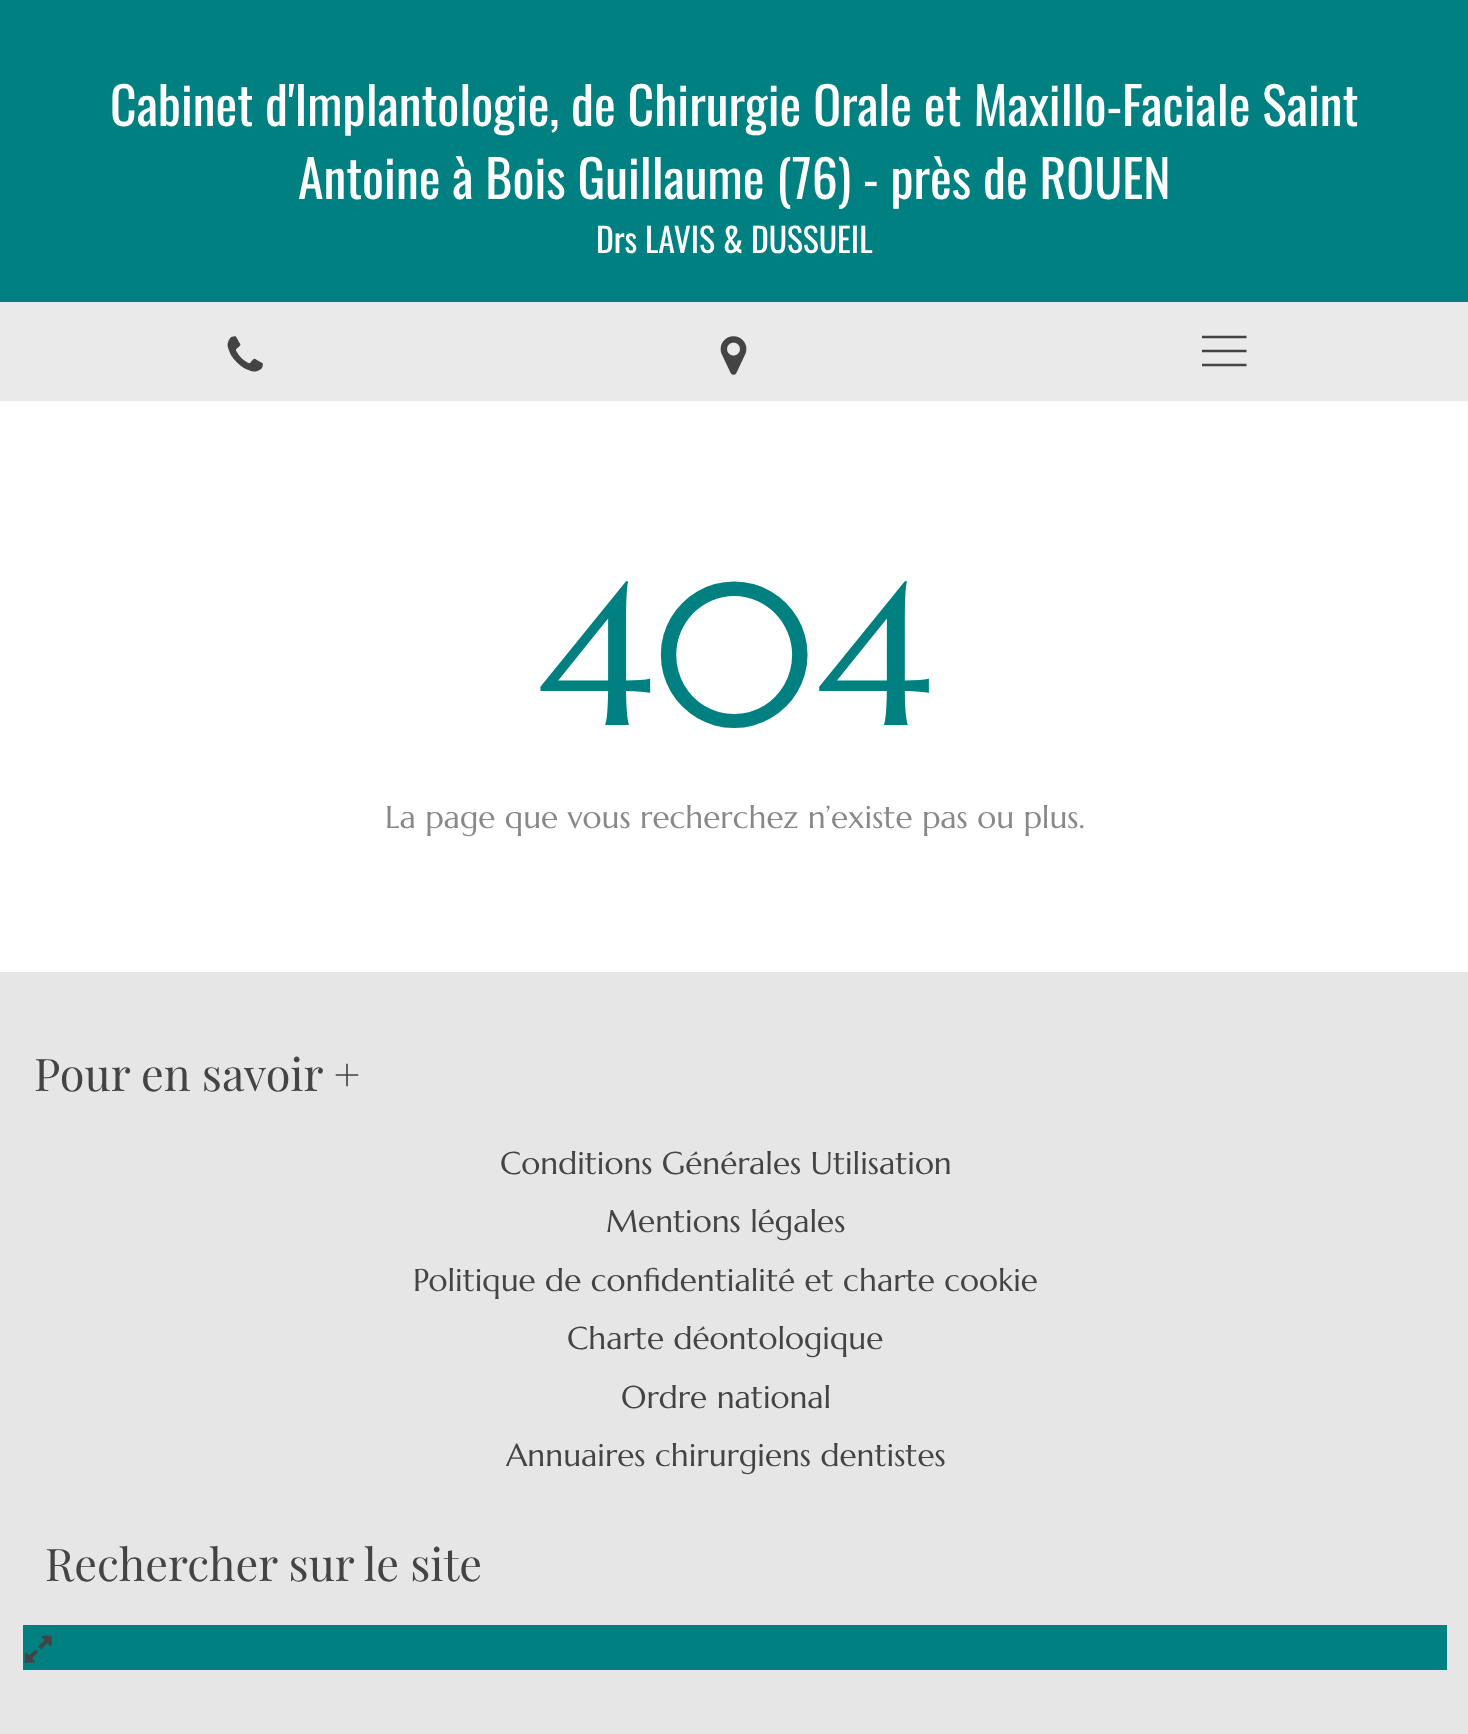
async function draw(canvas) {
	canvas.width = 1468;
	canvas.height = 1734;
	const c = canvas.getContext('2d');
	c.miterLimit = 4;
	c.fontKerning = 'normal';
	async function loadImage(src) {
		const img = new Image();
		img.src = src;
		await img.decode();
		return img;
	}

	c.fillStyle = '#fff';
	c.fillRect(0, 0, 1468, 1734);
	c.fillStyle = '#008080';
	c.fillRect(0, 0, 1468, 302);
	c.font = '51.75px Oswald';
	c.fillStyle = '#fff';
	c.fillText('Cabinet d\'Implantologie, de Chirurgie Orale et Maxillo-Faciale Saint', 110, 126);
	c.fillText('Antoine à Bois Guillaume (76) - près de ROUEN', 298, 199);
	c.font = '33.75px Oswald';
	c.fillText('Drs LAVIS & DUSSUEIL', 596, 253);
	c.fillStyle = '#eaeaea';
	c.fillRect(0, 302, 1468, 99);
	c.drawImage(await loadImage('img1.png'), 227, 336, 36, 36);
	c.drawImage(await loadImage('img2.png'), 720, 336, 27, 39);
	c.save();
	c.beginPath();
	c.rect(1202, 329, 45, 45);
	c.clip();
	c.beginPath();
	c.moveTo(1201.5, 351);
	c.lineTo(1246.5, 351);
	c.moveTo(1201.5, 337);
	c.lineTo(1246.5, 337);
	c.moveTo(1201.5, 365);
	c.lineTo(1246.5, 365);
	c.strokeStyle = '#444';
	c.lineWidth = 2.7;
	c.stroke();
	c.restore();
	c.font = '202px Marcellus';
	c.fillStyle = '#008080';
	c.fillText('404', 537, 725);
	c.font = '31.5px Marcellus';
	c.fillStyle = '#888';
	c.fillText('La page que vous recherchez n’existe pas ou plus.', 385, 828);
	c.fillStyle = '#e6e6e6';
	c.fillRect(0, 972, 1468, 762);
	c.font = '45px Playfair Display';
	c.fillStyle = '#444';
	c.fillText('Pour en savoir +', 34, 1091);
	c.font = '31.5px Marcellus';
	for (const [text, x, y] of [
		['Conditions Générales Utilisation', 500, 1174],
		['Mentions légales', 606, 1232],
		['Politique de confidentialité et charte cookie', 413, 1291],
		['Charte déontologique', 567, 1349],
		['Ordre national', 621, 1408],
		['Annuaires chirurgiens dentistes', 506, 1466],
	]) {
		c.fillText(text, x, y);
	}
	c.font = '45px Playfair Display';
	c.fillText('Rechercher sur le site', 45, 1581);
	c.fillStyle = '#008080';
	c.fillRect(23, 1625, 1424, 45);
	c.drawImage(await loadImage('img3.png'), 24, 1635, 28, 28);
}

draw(document.querySelector('canvas'));
